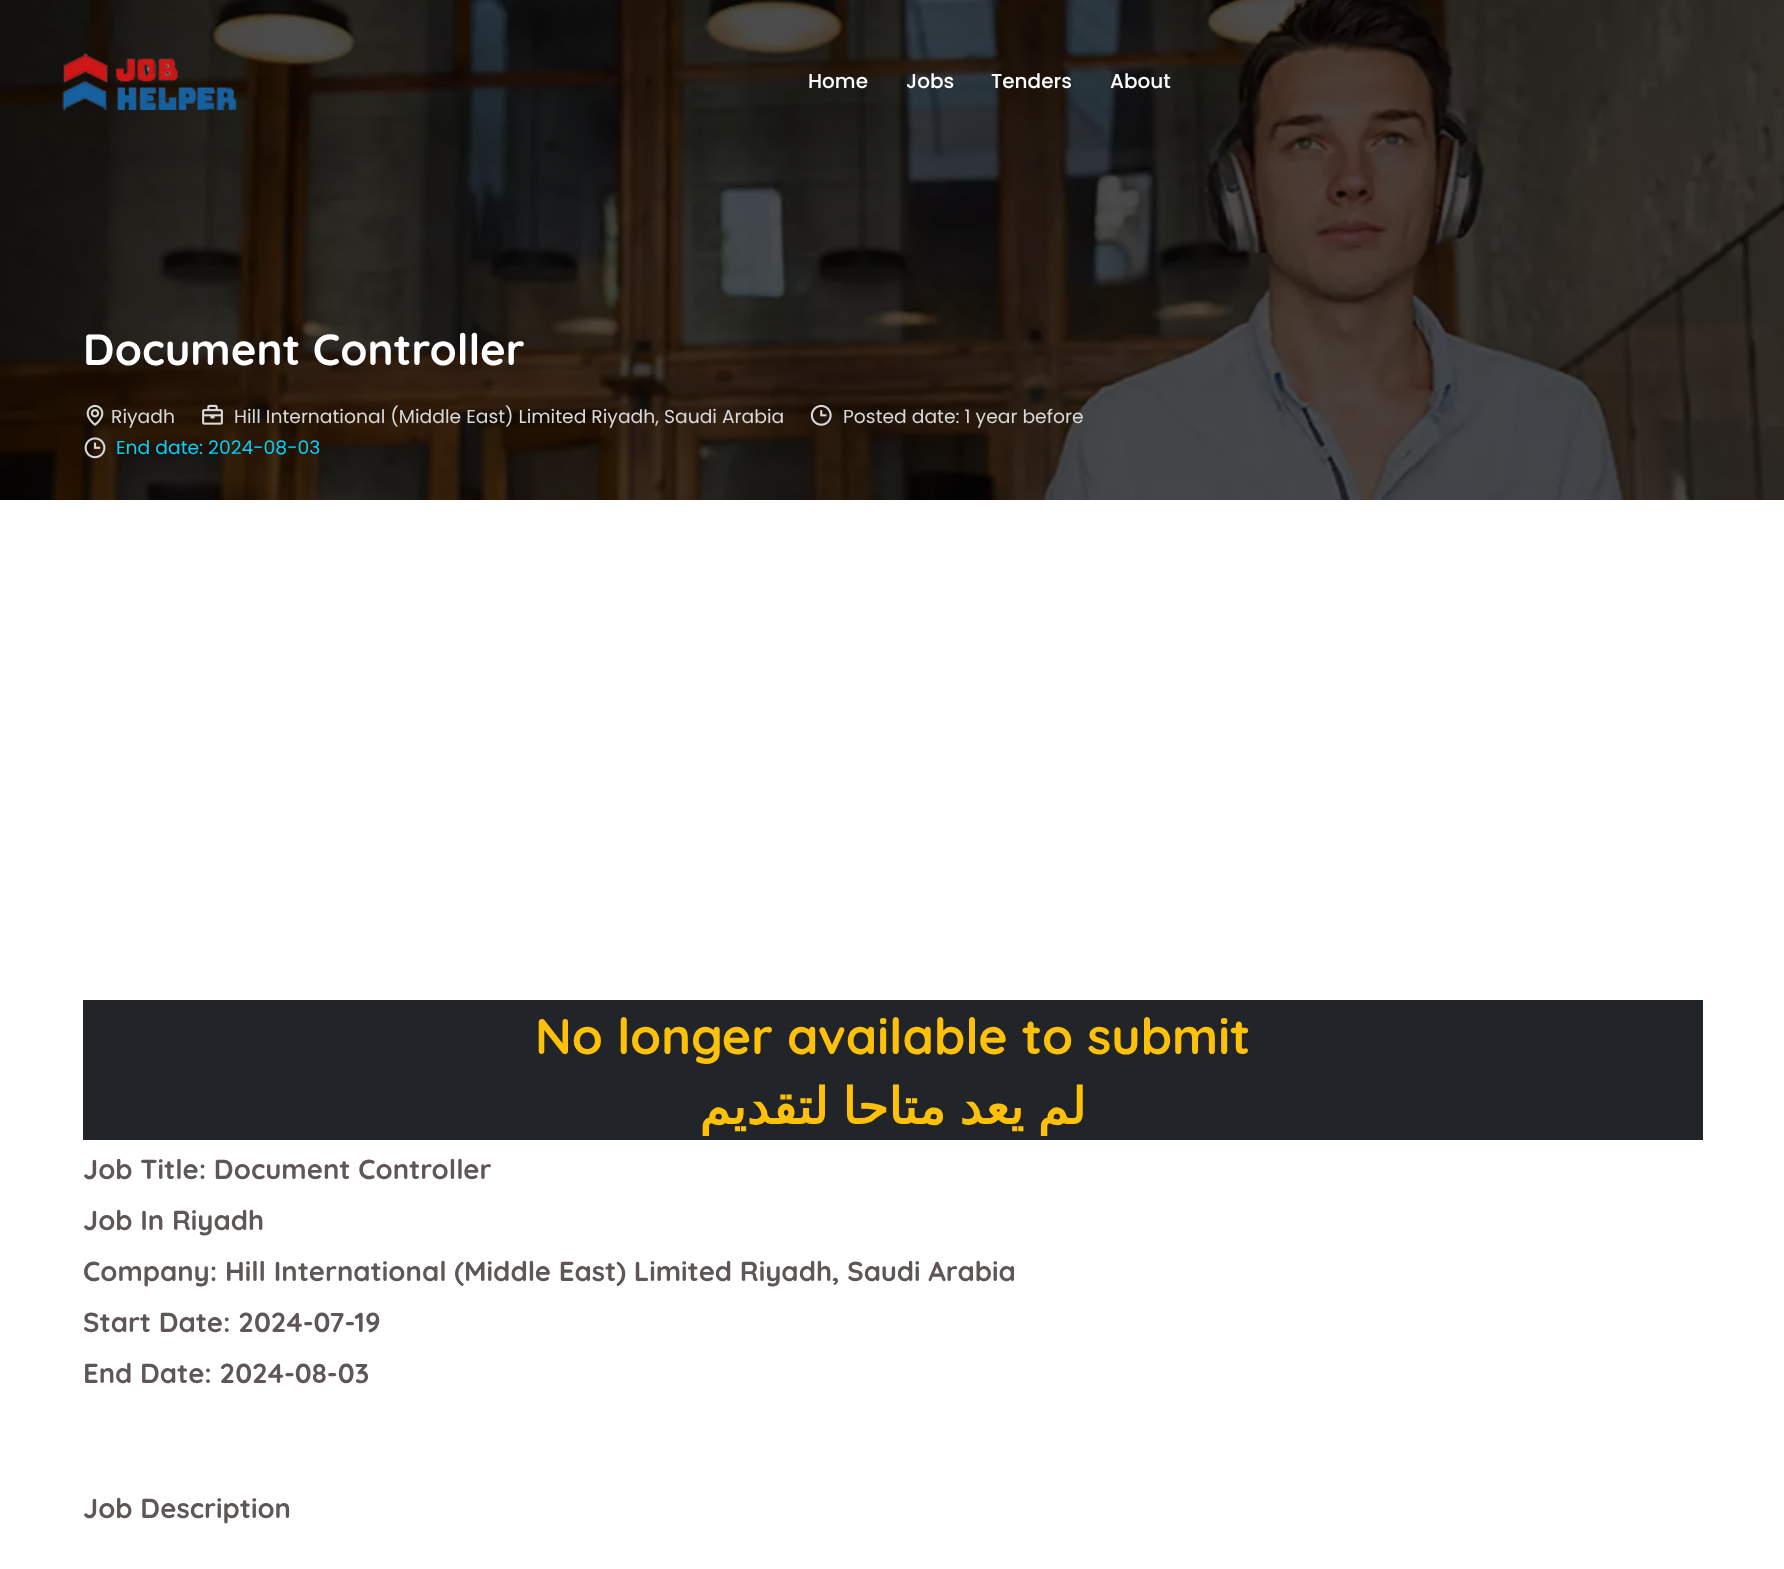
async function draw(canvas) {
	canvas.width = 1784;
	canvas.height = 1569;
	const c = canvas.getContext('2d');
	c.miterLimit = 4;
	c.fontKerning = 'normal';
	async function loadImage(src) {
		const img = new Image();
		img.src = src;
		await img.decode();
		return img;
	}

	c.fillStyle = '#fff';
	c.fillRect(0, 0, 1784, 1569);
	c.drawImage(await loadImage('img2.png'), 0, 0, 1784, 500);
	c.drawImage(await loadImage('img1.png'), 62, 53, 175, 57);
	c.font = '500 20px Poppins';
	for (const [text, x, y] of [
		['Home', 808, 88],
		['Jobs', 906, 88],
		['Tenders', 991, 88],
		['About', 1110, 88],
	]) {
		c.fillText(text, x, y);
	}
	c.font = 'bold 43.75px Quicksand';
	c.fillText('Document Controller', 83, 365);
	c.drawImage(await loadImage('img3.png'), 86, 404, 18, 22);
	c.font = '18.75px Poppins';
	c.fillStyle = '#d9d9d9';
	c.fillText('Riyadh', 111, 423);
	c.drawImage(await loadImage('img4.png'), 202, 404, 21, 21);
	c.fillText('Hill International (Middle East) Limited Riyadh, Saudi Arabia', 234, 423);
	c.drawImage(await loadImage('img5.png'), 810, 404, 22, 22);
	c.fillText('Posted date: 1 year before', 843, 423);
	c.drawImage(await loadImage('img6.png'), 84, 437, 22, 22);
	c.fillStyle = '#00d2ff';
	c.fillText('End date: 2024-08-03', 116, 454);
	c.fillStyle = '#212529';
	c.fillRect(83, 1000, 1620, 140);
	c.font = 'bold 50px Quicksand';
	c.fillStyle = '#ffc107';
	c.fillText('No longer available to submit', 535, 1054);
	c.wordSpacing = '-2px';
	c.direction = 'rtl';
	c.font = 'bold 50px DejaVu Sans';
	c.fillText('لم يعد متاحا لتقديم', 1086, 1124);
	c.wordSpacing = '0px';
	c.direction = 'ltr';
	c.font = 'bold 27.5px Quicksand';
	c.fillStyle = '#5f5656';
	for (const [text, x, y] of [
		['Job Title: Document Controller', 83, 1179],
		['Job In Riyadh', 83, 1230],
		['Company: Hill International (Middle East) Limited Riyadh, Saudi Arabia', 83, 1281],
		['Start Date: 2024-07-19', 83, 1332],
		['End Date: 2024-08-03', 83, 1383],
		['Job Description', 83, 1518],
	]) {
		c.fillText(text, x, y);
	}
}

draw(document.querySelector('canvas'));
